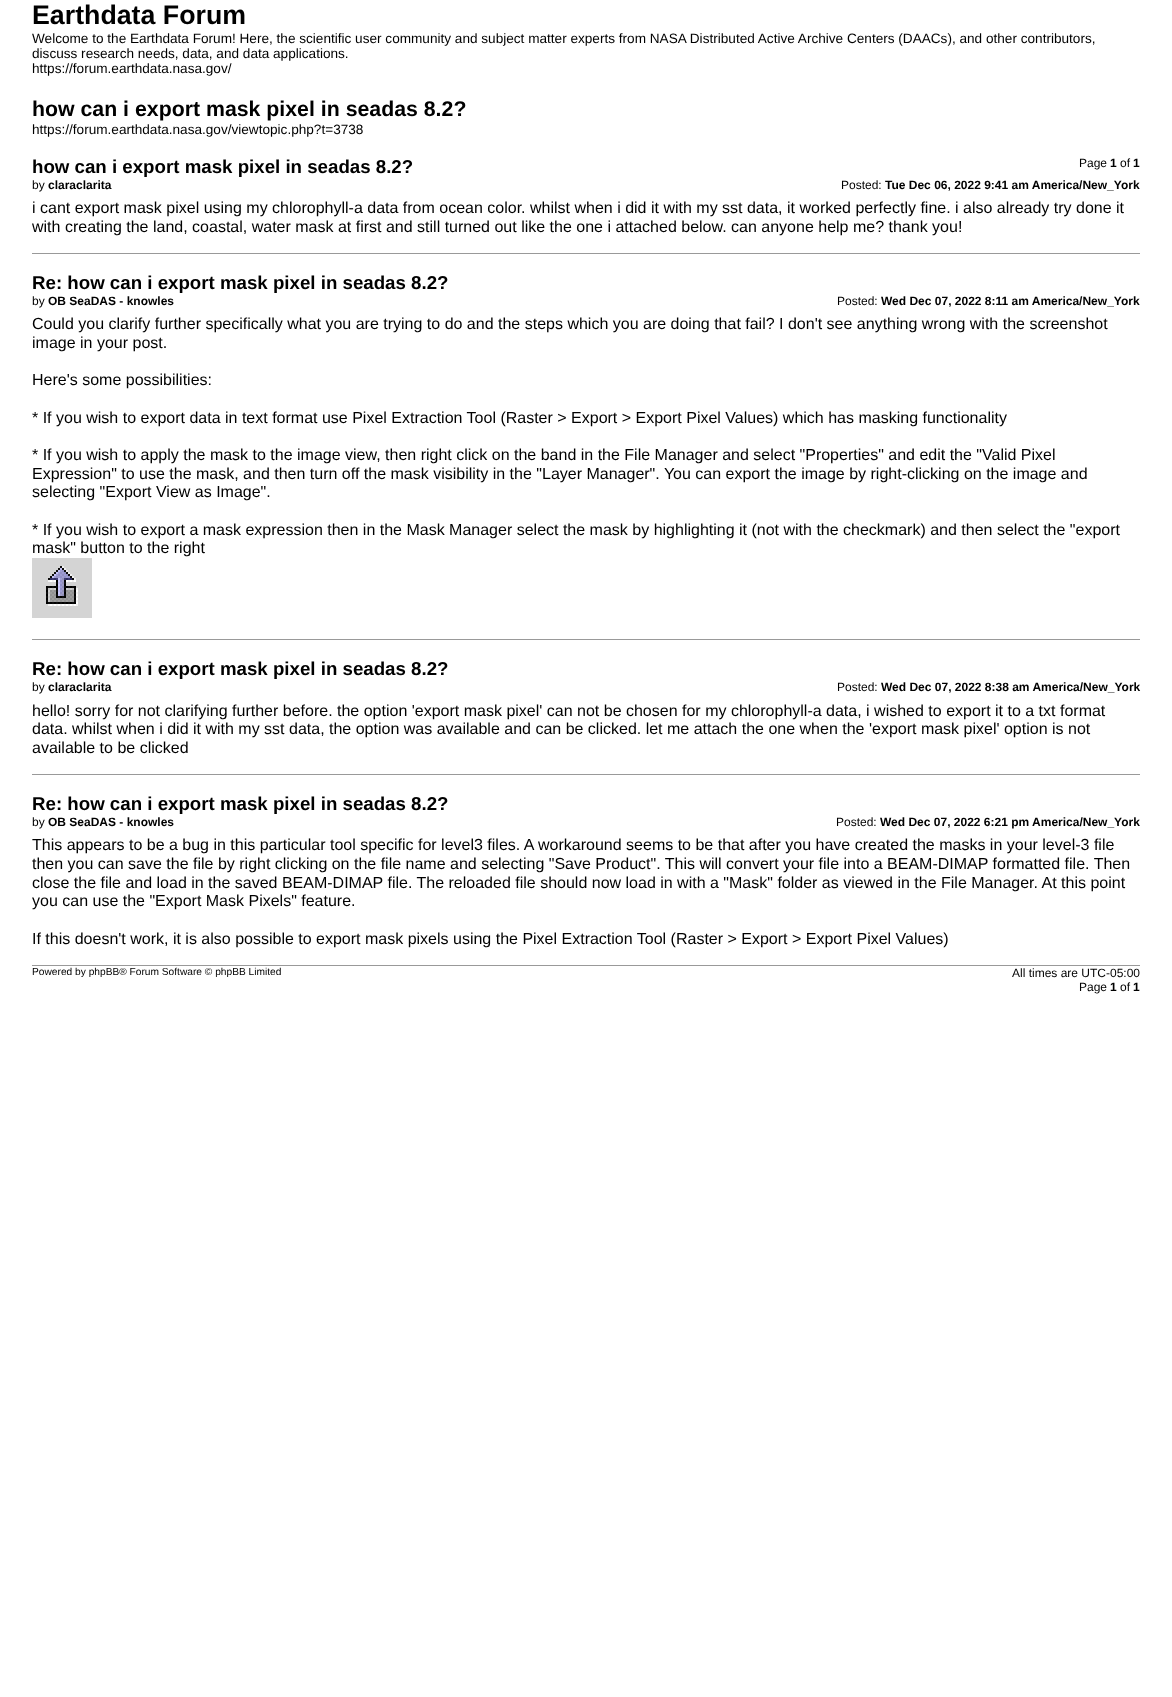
async function draw(canvas) {
	canvas.width = 1172;
	canvas.height = 1697;
	const c = canvas.getContext('2d');
	c.miterLimit = 4;
	c.fontKerning = 'normal';
	async function loadImage(src) {
		const img = new Image();
		img.src = src;
		await img.decode();
		return img;
	}

	c.fillStyle = '#fff';
	c.fillRect(0, 0, 1172, 1697);
	c.font = 'bold 26.75px Liberation Sans';
	c.fillStyle = '#000';
	c.fillText('Earthdata Forum', 32, 24);
	c.font = '13.6px Liberation Sans';
	for (const [text, x, y] of [
		['Welcome to the Earthdata Forum! Here, the scientific user community and subject matter experts from NASA Distributed Active Archive Centers (DAACs), and other contributors,', 32, 43],
		['discuss research needs, data, and data applications.', 32, 58],
		['https://forum.earthdata.nasa.gov/', 32, 73],
	]) {
		c.fillText(text, x, y);
	}
	c.font = 'bold 21.3px Liberation Sans';
	c.fillText('how can i export mask pixel in seadas 8.2?', 32, 116);
	c.font = '13.6px Liberation Sans';
	c.fillText('https://forum.earthdata.nasa.gov/viewtopic.php?t=3738', 32, 134);
	c.font = '12px Liberation Sans';
	c.fillText('Page', 1079, 167);
	c.font = 'bold 12px Liberation Sans';
	c.fillText('1', 1110, 167);
	c.font = '12px Liberation Sans';
	c.fillText('of', 1120, 167);
	c.font = 'bold 12px Liberation Sans';
	c.fillText('1', 1133, 167);
	c.font = 'bold 18.7px Liberation Sans';
	c.fillText('how can i export mask pixel in seadas 8.2?', 32, 173);
	c.font = '12px Liberation Sans';
	c.fillText('by', 32, 189);
	c.font = 'bold 12px Liberation Sans';
	c.fillText('claraclarita', 48, 189);
	c.font = '12px Liberation Sans';
	c.fillText('Posted:', 841, 189);
	c.font = 'bold 12px Liberation Sans';
	c.fillText('Tue Dec 06, 2022 9:41 am America/New_York', 885, 189);
	c.font = '16px Liberation Sans';
	c.fillText('i cant export mask pixel using my chlorophyll-a data from ocean color. whilst when i did it with my sst data, it worked perfectly fine. i also already try done it', 32, 213);
	c.fillText('with creating the land, coastal, water mask at first and still turned out like the one i attached below. can anyone help me? thank you!', 32, 232);
	c.fillStyle = '#999';
	c.fillRect(32, 253, 1108, 1);
	c.font = 'bold 18.7px Liberation Sans';
	c.fillStyle = '#000';
	c.fillText('Re: how can i export mask pixel in seadas 8.2?', 32, 289);
	c.font = '12px Liberation Sans';
	c.fillText('by', 32, 305);
	c.font = 'bold 12px Liberation Sans';
	c.fillText('OB SeaDAS - knowles', 48, 305);
	c.font = '12px Liberation Sans';
	c.fillText('Posted:', 837, 305);
	c.font = 'bold 12px Liberation Sans';
	c.fillText('Wed Dec 07, 2022 8:11 am America/New_York', 881, 305);
	c.font = '16px Liberation Sans';
	for (const [text, x, y] of [
		['Could you clarify further specifically what you are trying to do and the steps which you are doing that fail? I don\'t see anything wrong with the screenshot', 32, 329],
		['image in your post.', 32, 348],
		['Here\'s some possibilities:', 32, 385],
		['* If you wish to export data in text format use Pixel Extraction Tool (Raster > Export > Export Pixel Values) which has masking functionality', 32, 423],
		['* If you wish to apply the mask to the image view, then right click on the band in the File Manager and select "Properties" and edit the "Valid Pixel', 32, 460],
		['Expression" to use the mask, and then turn off the mask visibility in the "Layer Manager". You can export the image by right-clicking on the image and', 32, 479],
		['selecting "Export View as Image".', 32, 497],
		['* If you wish to export a mask expression then in the Mask Manager select the mask by highlighting it (not with the checkmark) and then select the "export', 32, 535],
		['mask" button to the right', 32, 553],
	]) {
		c.fillText(text, x, y);
	}
	c.drawImage(await loadImage('img1.png'), 32, 558, 60, 60);
	c.fillStyle = '#999';
	c.fillRect(32, 639, 1108, 1);
	c.font = 'bold 18.7px Liberation Sans';
	c.fillStyle = '#000';
	c.fillText('Re: how can i export mask pixel in seadas 8.2?', 32, 675);
	c.font = '12px Liberation Sans';
	c.fillText('by', 32, 691);
	c.font = 'bold 12px Liberation Sans';
	c.fillText('claraclarita', 48, 691);
	c.font = '12px Liberation Sans';
	c.fillText('Posted:', 837, 691);
	c.font = 'bold 12px Liberation Sans';
	c.fillText('Wed Dec 07, 2022 8:38 am America/New_York', 881, 691);
	c.font = '16px Liberation Sans';
	for (const [text, x, y] of [
		['hello! sorry for not clarifying further before. the option \'export mask pixel\' can not be chosen for my chlorophyll-a data, i wished to export it to a txt format', 32, 716],
		['data. whilst when i did it with my sst data, the option was available and can be clicked. let me attach the one when the \'export mask pixel\' option is not', 32, 734],
		['available to be clicked', 32, 753],
	]) {
		c.fillText(text, x, y);
	}
	c.fillStyle = '#999';
	c.fillRect(32, 774, 1108, 1);
	c.font = 'bold 18.7px Liberation Sans';
	c.fillStyle = '#000';
	c.fillText('Re: how can i export mask pixel in seadas 8.2?', 32, 810);
	c.font = '12px Liberation Sans';
	c.fillText('by', 32, 826);
	c.font = 'bold 12px Liberation Sans';
	c.fillText('OB SeaDAS - knowles', 48, 826);
	c.font = '12px Liberation Sans';
	c.fillText('Posted:', 836, 826);
	c.font = 'bold 12px Liberation Sans';
	c.fillText('Wed Dec 07, 2022 6:21 pm America/New_York', 880, 826);
	c.font = '16px Liberation Sans';
	for (const [text, x, y] of [
		['This appears to be a bug in this particular tool specific for level3 files. A workaround seems to be that after you have created the masks in your level-3 file', 32, 850],
		['then you can save the file by right clicking on the file name and selecting "Save Product". This will convert your file into a BEAM-DIMAP formatted file. Then', 32, 869],
		['close the file and load in the saved BEAM-DIMAP file. The reloaded file should now load in with a "Mask" folder as viewed in the File Manager. At this point', 32, 888],
		['you can use the "Export Mask Pixels" feature.', 32, 906],
		['If this doesn\'t work, it is also possible to export mask pixels using the Pixel Extraction Tool (Raster > Export > Export Pixel Values)', 32, 944],
	]) {
		c.fillText(text, x, y);
	}
	c.fillStyle = '#999';
	c.fillRect(32, 965, 1108, 1);
	c.font = '10.2px Liberation Sans';
	c.fillStyle = '#000';
	c.fillText('Powered by phpBB® Forum Software © phpBB Limited', 32, 975);
	c.font = '12px Liberation Sans';
	c.fillText('All times are UTC-05:00', 1012, 977);
	c.fillText('Page', 1079, 991);
	c.font = 'bold 12px Liberation Sans';
	c.fillText('1', 1110, 991);
	c.font = '12px Liberation Sans';
	c.fillText('of', 1120, 991);
	c.font = 'bold 12px Liberation Sans';
	c.fillText('1', 1133, 991);
}

draw(document.querySelector('canvas'));
